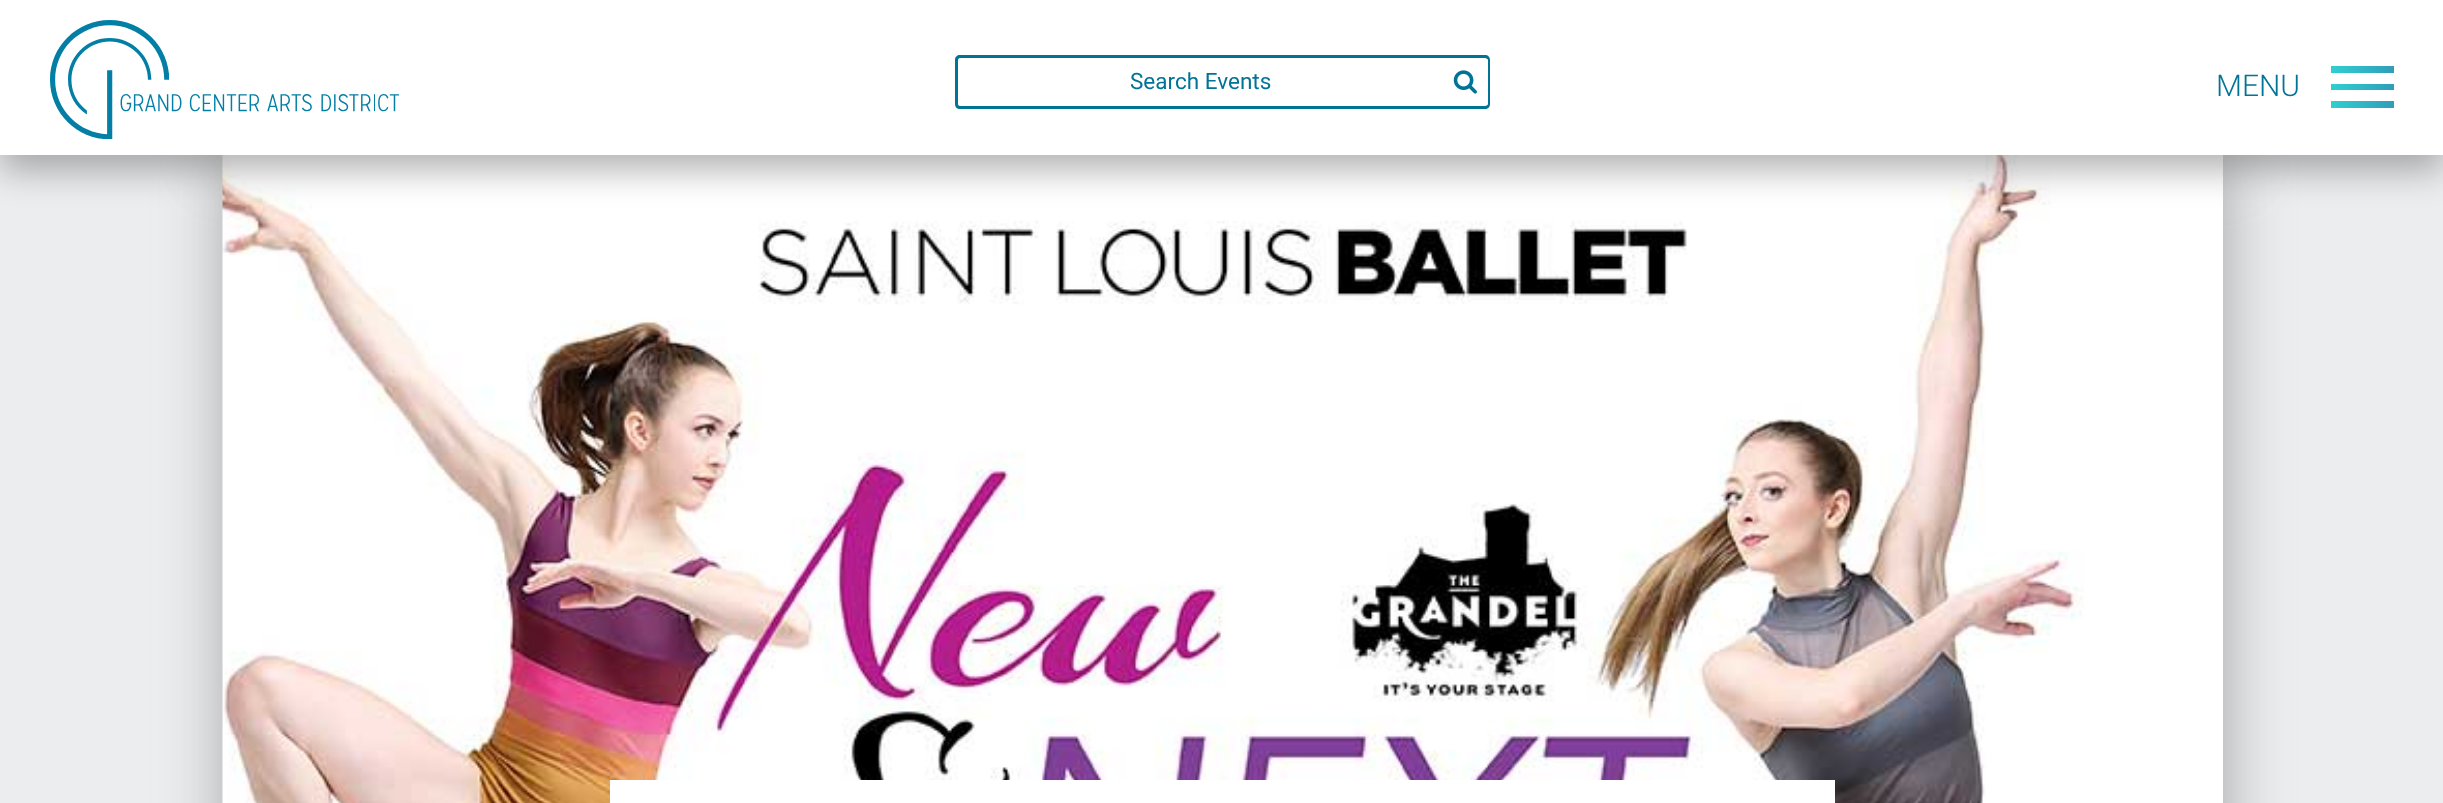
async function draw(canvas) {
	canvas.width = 2443;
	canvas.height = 803;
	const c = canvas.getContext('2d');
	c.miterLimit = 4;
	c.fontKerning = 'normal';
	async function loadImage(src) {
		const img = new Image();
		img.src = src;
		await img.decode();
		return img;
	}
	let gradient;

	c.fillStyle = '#ecedef';
	c.fillRect(0, 0, 2443, 803);
	c.fillStyle = '#a4a4a4';
	c.filter = 'blur(31px)';
	c.beginPath();
	c.rect(225, 158, 2000, 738);
	c.fill();
	c.filter = 'none';
	c.fillStyle = '#fff';
	c.fillRect(2084, 155, 139, 648);
	c.drawImage(await loadImage('img1.png'), 222, 155, 1862, 648);
	c.fillRect(610, 780, 1225, 23);
	c.fillStyle = '#0000004d';
	c.filter = 'blur(17.5px)';
	c.beginPath();
	c.rect(0, 15, 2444, 155);
	c.fill();
	c.filter = 'none';
	c.fillStyle = '#fff';
	c.fillRect(0, 0, 2443, 155);
	c.drawImage(await loadImage('img2.png'), 50, 20, 349, 120);
	c.fillStyle = '#007396';
	c.beginPath();
	c.moveTo(960, 55);
	c.lineTo(1444, 55);
	c.lineTo(1444, 109);
	c.lineTo(960, 109);
	c.bezierCurveTo(957, 109, 955, 107, 955, 104);
	c.lineTo(955, 60);
	c.bezierCurveTo(955, 57, 957, 55, 960, 55);
	c.closePath();
	c.moveTo(960, 58);
	c.lineTo(1444, 58);
	c.lineTo(1444, 106);
	c.lineTo(960, 106);
	c.bezierCurveTo(959, 106, 958, 105, 958, 104);
	c.lineTo(958, 60);
	c.bezierCurveTo(958, 59, 959, 58, 960, 58);
	c.closePath();
	c.fill('evenodd');
	c.font = '22.5px Roboto';
	c.fillText('Search Events', 1130, 89);
	c.beginPath();
	c.moveTo(1444, 55);
	c.lineTo(1485, 55);
	c.bezierCurveTo(1488, 55, 1490, 57, 1490, 60);
	c.lineTo(1490, 104);
	c.bezierCurveTo(1490, 107, 1488, 109, 1485, 109);
	c.lineTo(1444, 109);
	c.closePath();
	c.moveTo(1444, 58);
	c.lineTo(1485, 58);
	c.bezierCurveTo(1486, 58, 1488, 59, 1488, 60);
	c.lineTo(1488, 104);
	c.bezierCurveTo(1488, 105, 1486, 106, 1485, 106);
	c.lineTo(1444, 106);
	c.closePath();
	c.fill('evenodd');
	c.drawImage(await loadImage('img3.png'), 1453, 70, 24, 24);
	gradient = c.createLinearGradient(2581, 79, 2331, 79);
	gradient.addColorStop(0, '#330876');
	gradient.addColorStop(1, '#30cfd0');
	c.fillStyle = gradient;
	c.fillRect(2331, 66, 63, 7);
	c.font = '300 30px Roboto';
	c.fillStyle = '#007396';
	c.fillText('MENU', 2216, 96);
	gradient = c.createLinearGradient(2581, 96, 2331, 96);
	gradient.addColorStop(0, '#330876');
	gradient.addColorStop(1, '#30cfd0');
	c.fillStyle = gradient;
	c.fillRect(2331, 84, 63, 6);
	gradient = c.createLinearGradient(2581, 114, 2331, 114);
	gradient.addColorStop(0, '#330876');
	gradient.addColorStop(1, '#30cfd0');
	c.fillStyle = gradient;
	c.fillRect(2331, 101, 63, 7);
}

draw(document.querySelector('canvas'));
